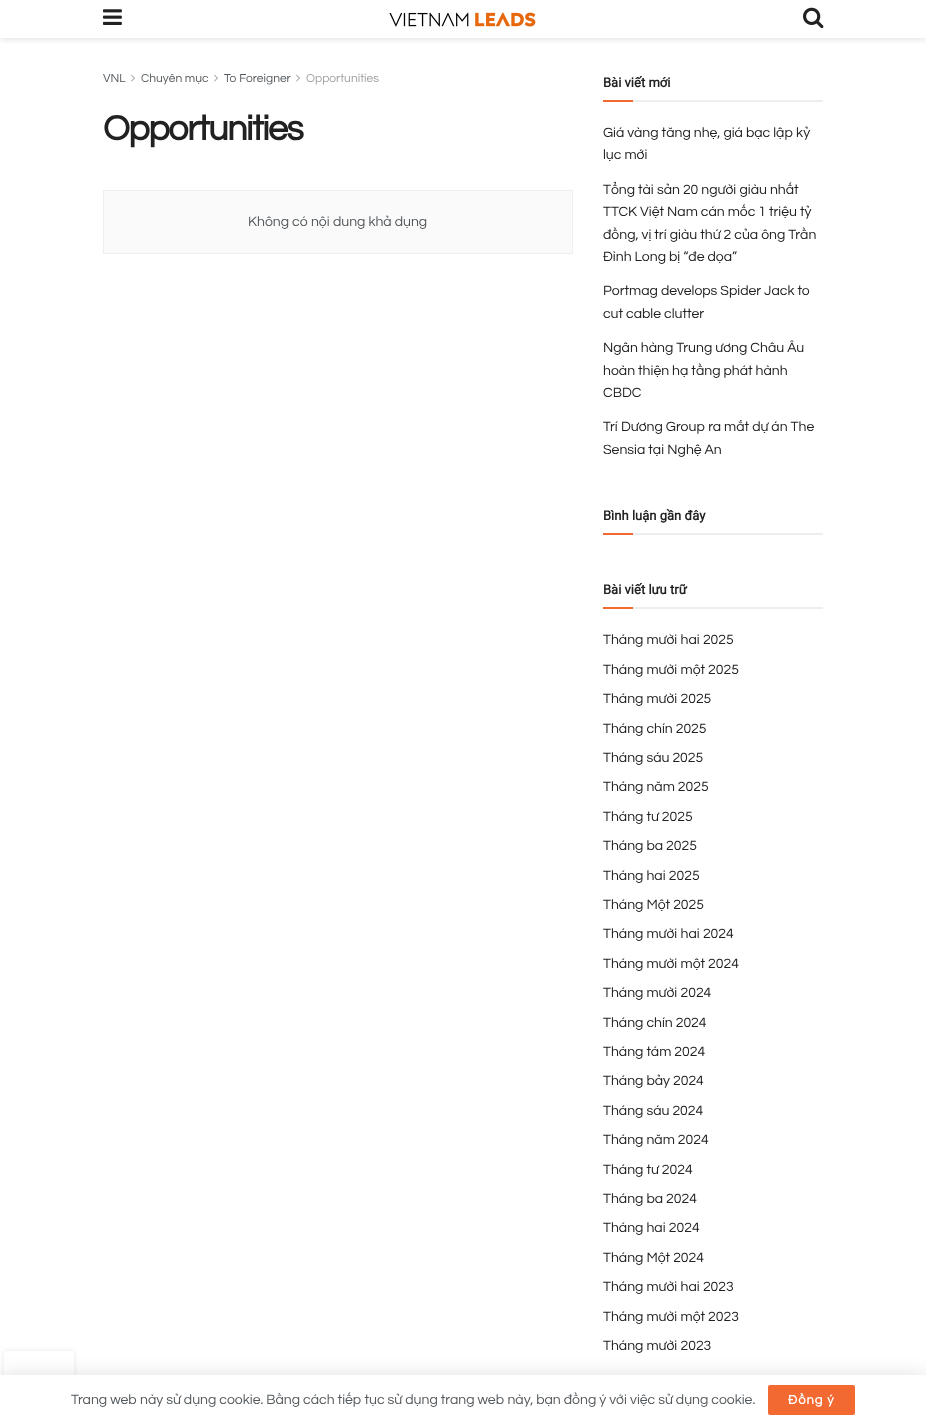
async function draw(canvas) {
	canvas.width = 926;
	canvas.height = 1425;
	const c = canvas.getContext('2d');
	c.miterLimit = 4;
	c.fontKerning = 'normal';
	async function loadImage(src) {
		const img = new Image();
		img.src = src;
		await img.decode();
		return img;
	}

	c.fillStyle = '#fff';
	c.fillRect(0, 0, 926, 1425);
	c.save();
	c.beginPath();
	c.rect(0, 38, 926, 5);
	c.clip();
	c.fillStyle = '#0000001a';
	c.filter = 'blur(3px)';
	c.beginPath();
	c.rect(0, 2, 926, 38);
	c.fill();
	c.filter = 'none';
	c.restore();
	c.drawImage(await loadImage('img1.png'), 103, 9, 19, 16);
	c.drawImage(await loadImage('img2.png'), 389, 12, 147, 15);
	c.drawImage(await loadImage('img3.png'), 803, 7, 21, 22);
	c.font = '12px Questrial';
	c.fillStyle = '#53585c';
	c.fillText('VNL', 103, 82);
	c.drawImage(await loadImage('img4.png'), 131, 74, 4, 8);
	c.fillText('Chuyên mục', 141, 82);
	c.drawImage(await loadImage('img4.png'), 214, 74, 4, 8);
	c.fillText('To Foreigner', 224, 82);
	c.drawImage(await loadImage('img4.png'), 296, 74, 4, 8);
	c.fillStyle = '#a0a0a0';
	c.fillText('Opportunities', 306, 82);
	c.letterSpacing = '-1.5px';
	c.font = 'bold 36px Questrial';
	c.fillStyle = '#212121';
	c.fillText('Opportunities', 103, 140);
	c.fillStyle = '#fafafa';
	c.beginPath();
	c.rect(103.5, 190.5, 469, 63);
	c.fill();
	c.strokeStyle = '#eee';
	c.stroke();
	c.letterSpacing = '0px';
	c.font = '14px Questrial';
	c.fillStyle = '#53585c';
	c.fillText('Không có nội dung khả dụng', 248, 226);
	c.fillStyle = '#eee';
	c.fillRect(633, 100, 190, 2);
	c.font = 'bold 13px Roboto';
	c.fillStyle = '#212121';
	c.fillText('Bài viết mới', 603, 87);
	c.fillStyle = '#f26932';
	c.fillRect(603, 100, 30, 2);
	c.font = '14px Questrial';
	c.fillStyle = '#212121';
	for (const [text, x, y] of [
		['Giá vàng tăng nhẹ, giá bạc lập kỷ', 603, 137],
		['lục mới', 603, 159],
		['Tổng tài sản 20 người giàu nhất', 603, 194],
		['TTCK Việt Nam cán mốc 1 triệu tỷ', 603, 216],
		['đồng, vị trí giàu thứ 2 của ông Trần', 603, 239],
		['Đình Long bị “đe dọa”', 603, 261],
		['Portmag develops Spider Jack to', 603, 295],
		['cut cable clutter', 603, 318],
		['Ngân hàng Trung ương Châu Âu', 603, 352],
		['hoàn thiện hạ tầng phát hành', 603, 375],
		['CBDC', 603, 397],
		['Trí Dương Group ra mắt dự án The', 603, 431],
		['Sensia tại Nghệ An', 603, 454],
	]) {
		c.fillText(text, x, y);
	}
	c.fillStyle = '#eee';
	c.fillRect(633, 533, 190, 2);
	c.font = 'bold 13px Roboto';
	c.fillStyle = '#212121';
	c.fillText('Bình luận gần đây', 603, 520);
	c.fillStyle = '#f26932';
	c.fillRect(603, 533, 30, 2);
	c.fillStyle = '#eee';
	c.fillRect(633, 607, 190, 2);
	c.fillStyle = '#212121';
	c.fillText('Bài viết lưu trữ', 603, 594);
	c.fillStyle = '#f26932';
	c.fillRect(603, 607, 30, 2);
	c.font = '14px Questrial';
	c.fillStyle = '#212121';
	for (const [text, x, y] of [
		['Tháng mười hai 2025', 603, 644],
		['Tháng mười một 2025', 603, 674],
		['Tháng mười 2025', 603, 703],
		['Tháng chín 2025', 603, 733],
		['Tháng sáu 2025', 603, 762],
		['Tháng năm 2025', 603, 791],
		['Tháng tư 2025', 603, 821],
		['Tháng ba 2025', 603, 850],
		['Tháng hai 2025', 603, 880],
		['Tháng Một 2025', 603, 909],
		['Tháng mười hai 2024', 603, 938],
		['Tháng mười một 2024', 603, 968],
		['Tháng mười 2024', 603, 997],
		['Tháng chín 2024', 603, 1027],
		['Tháng tám 2024', 603, 1056],
		['Tháng bảy 2024', 603, 1085],
		['Tháng sáu 2024', 603, 1115],
		['Tháng năm 2024', 603, 1144],
		['Tháng tư 2024', 603, 1174],
		['Tháng ba 2024', 603, 1203],
		['Tháng hai 2024', 603, 1232],
		['Tháng Một 2024', 603, 1262],
		['Tháng mười hai 2023', 603, 1291],
		['Tháng mười một 2023', 603, 1321],
		['Tháng mười 2023', 603, 1350],
	]) {
		c.fillText(text, x, y);
	}
	c.save();
	c.beginPath();
	c.moveTo(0, 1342);
	c.lineTo(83, 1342);
	c.lineTo(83, 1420);
	c.lineTo(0, 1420);
	c.closePath();
	c.moveTo(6, 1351);
	c.lineTo(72, 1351);
	c.bezierCurveTo(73, 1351, 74, 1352, 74, 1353);
	c.lineTo(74, 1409);
	c.bezierCurveTo(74, 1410, 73, 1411, 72, 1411);
	c.lineTo(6, 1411);
	c.bezierCurveTo(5, 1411, 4, 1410, 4, 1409);
	c.lineTo(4, 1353);
	c.bezierCurveTo(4, 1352, 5, 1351, 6, 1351);
	c.closePath();
	c.clip('evenodd');
	c.fillStyle = '#e6e6e6';
	c.filter = 'blur(2.5px)';
	c.beginPath();
	c.roundRect(4, 1351, 70, 60, 2);
	c.fill();
	c.filter = 'none';
	c.restore();
	c.fillStyle = '#00000026';
	c.filter = 'blur(10px)';
	c.beginPath();
	c.rect(0, 1377, 926, 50);
	c.fill();
	c.filter = 'none';
	c.fillStyle = '#00000033';
	c.filter = 'blur(0.5px)';
	c.beginPath();
	c.rect(0, 1375, 926, 50);
	c.fill();
	c.filter = 'none';
	c.fillStyle = '#fff';
	c.fillRect(0, 1375, 926, 50);
	c.fillStyle = '#53585c';
	c.fillText('Trang web này sử dụng cookie. Bằng cách tiếp tục sử dụng trang web này, bạn đồng ý với việc sử dụng cookie.', 71, 1404);
	c.fillStyle = '#f26932';
	c.beginPath();
	c.roundRect(768, 1385, 87, 30, 2);
	c.fill();
	c.letterSpacing = '1px';
	c.font = 'bold 13px Questrial';
	c.fillStyle = '#fff';
	c.fillText('Đồng ý', 788, 1404);
}

draw(document.querySelector('canvas'));
